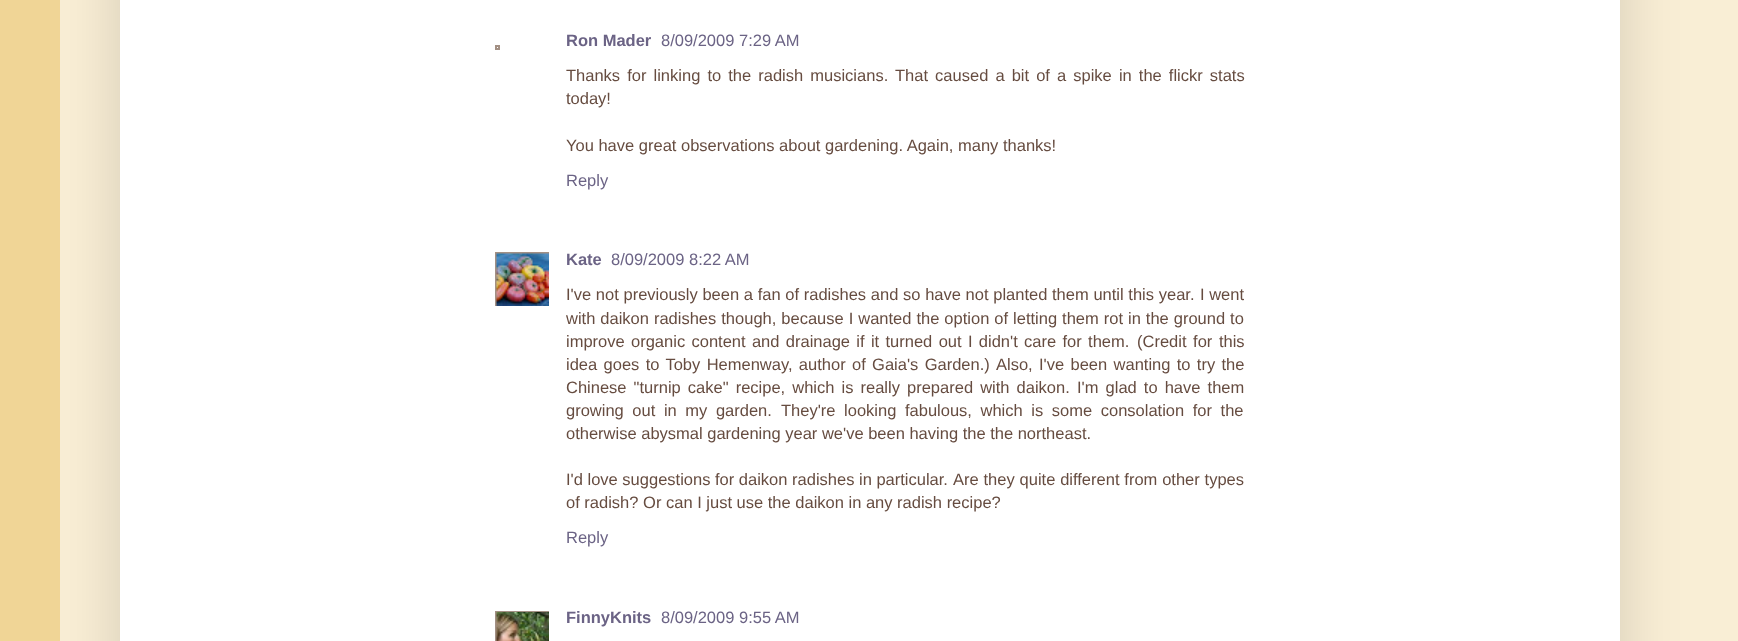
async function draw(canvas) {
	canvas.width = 1738;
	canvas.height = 641;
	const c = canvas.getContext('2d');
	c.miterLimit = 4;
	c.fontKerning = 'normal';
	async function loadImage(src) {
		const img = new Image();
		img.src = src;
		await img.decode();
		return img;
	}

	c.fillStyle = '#f0d596';
	c.fillRect(0, 0, 1738, 641);
	c.fillStyle = '#f9eed5';
	c.fillRect(60, 0, 1678, 641);
	c.fillStyle = '#00000026';
	c.filter = 'blur(30px)';
	c.beginPath();
	c.rect(120, -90, 1500, 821);
	c.fill();
	c.filter = 'none';
	c.fillStyle = '#fff';
	c.fillRect(120, 0, 1500, 641);
	c.strokeStyle = '#a39084';
	c.lineWidth = 2;
	c.strokeRect(496, 46, 3, 3);
	c.font = 'bold 16.5px Liberation Sans';
	c.fillStyle = '#6b6385';
	c.fillText('Ron Mader', 566, 46);
	c.font = '16.5px Liberation Sans';
	c.fillText('8/09/2009 7:29 AM', 661, 46);
	c.wordSpacing = '2.5px';
	c.fillStyle = '#664c40';
	c.fillText('Thanks for linking to the radish musicians. That caused a bit of a spike in the flickr stats', 566, 81);
	c.wordSpacing = '0px';
	c.fillText('today!', 566, 104);
	c.fillText('You have great observations about gardening. Again, many thanks!', 566, 151);
	c.fillStyle = '#6b6385';
	c.fillText('Reply', 566, 186);
	c.save();
	c.beginPath();
	c.rect(495, 252, 54, 54);
	c.clip();
	c.strokeRect(496, 253, 54, 54);
	c.restore();
	c.drawImage(await loadImage('img1.png'), 496, 253, 53, 53);
	c.font = 'bold 16.5px Liberation Sans';
	c.fillText('Kate', 566, 265);
	c.font = '16.5px Liberation Sans';
	c.fillText('8/09/2009 8:22 AM', 611, 265);
	c.wordSpacing = '0.1px';
	c.fillStyle = '#664c40';
	c.fillText('I\'ve not previously been a fan of radishes and so have not planted them until this year.', 566, 300);
	c.wordSpacing = '0px';
	c.fillText('I went', 1200, 300);
	c.wordSpacing = '0.4px';
	c.fillText('with daikon radishes though, because I wanted the option of letting them rot in the ground to', 566, 324);
	c.wordSpacing = '1.75px';
	c.fillText('improve organic content and drainage if it turned out I didn\'t care for them.', 566, 347);
	c.wordSpacing = '2px';
	c.fillText('(Credit for this', 1137, 347);
	c.wordSpacing = '1.75px';
	c.fillText('idea goes to Toby Hemenway, author of Gaia\'s Garden.)', 566, 370);
	c.fillText('Also, I\'ve been wanting to try the', 996, 370);
	c.wordSpacing = '2.5px';
	c.fillText('Chinese "turnip cake" recipe, which is really prepared with daikon.', 566, 393);
	c.fillText('I\'m glad to have them', 1077, 393);
	c.wordSpacing = '4px';
	c.fillText('growing out in my garden.', 566, 416);
	c.fillText('They\'re looking fabulous, which is some consolation for the', 781, 416);
	c.wordSpacing = '0px';
	c.fillText('otherwise abysmal gardening year we\'ve been having the the northeast.', 566, 439);
	c.fillText('I\'d love suggestions for daikon radishes in particular.', 566, 485);
	c.wordSpacing = '0.25px';
	c.fillText('Are they quite different from other types', 953, 485);
	c.wordSpacing = '0px';
	c.fillText('of radish? Or can I just use the daikon in any radish recipe?', 566, 508);
	c.fillStyle = '#6b6385';
	c.fillText('Reply', 566, 543);
	c.save();
	c.beginPath();
	c.rect(495, 611, 54, 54);
	c.clip();
	c.strokeRect(496, 612, 54, 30);
	c.restore();
	c.drawImage(await loadImage('img2.png'), 496, 612, 53, 29);
	c.font = 'bold 16.5px Liberation Sans';
	c.fillText('FinnyKnits', 566, 623);
	c.font = '16.5px Liberation Sans';
	c.fillText('8/09/2009 9:55 AM', 661, 623);
}

draw(document.querySelector('canvas'));
